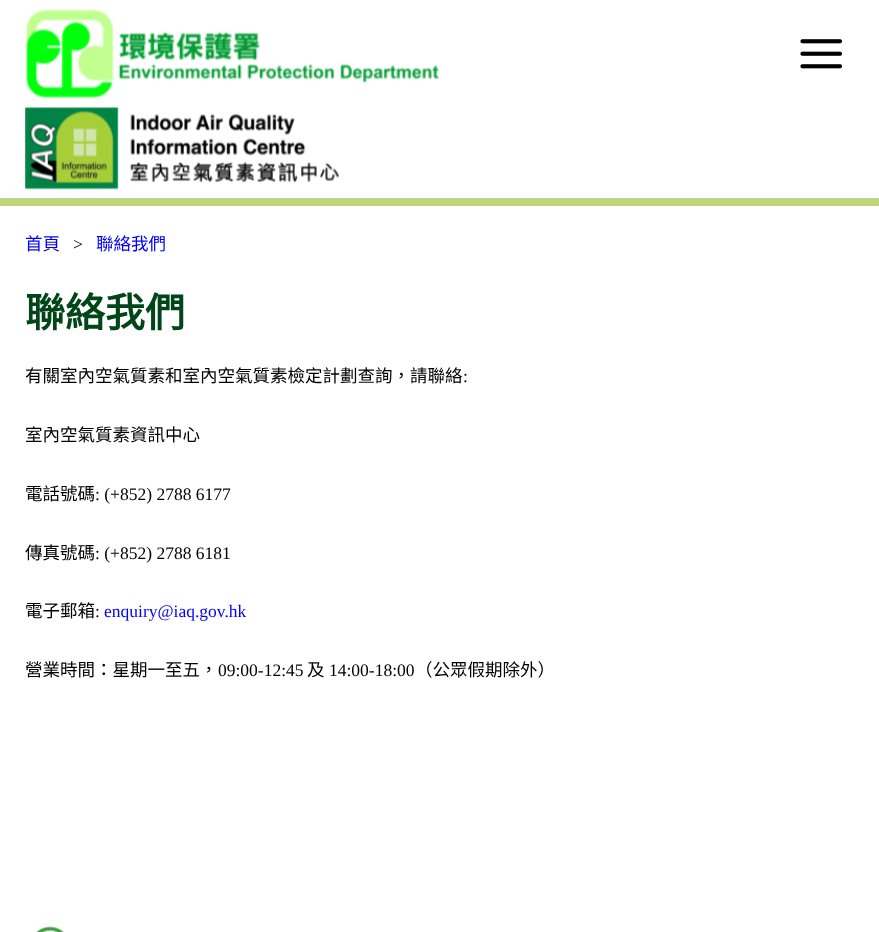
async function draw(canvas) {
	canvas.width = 879;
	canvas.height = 932;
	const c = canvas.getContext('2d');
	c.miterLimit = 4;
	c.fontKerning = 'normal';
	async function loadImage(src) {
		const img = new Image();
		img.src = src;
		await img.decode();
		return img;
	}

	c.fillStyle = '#fff';
	c.fillRect(0, 0, 879, 932);
	c.drawImage(await loadImage('img1.png'), 26, 9, 414, 90);
	c.drawImage(await loadImage('img2.png'), 800, 39, 43, 30);
	c.fillStyle = '#bfd67f';
	c.fillRect(0, 198, 879, 8);
	c.drawImage(await loadImage('img3.png'), 25, 107, 314, 83);
	c.font = '17.5px Noto Sans CJK HK';
	c.fillStyle = '#00f';
	c.fillText('首頁', 25, 250);
	c.font = '17.5px Liberation Serif';
	c.fillStyle = '#000';
	c.fillText('>', 73, 250);
	c.font = '17.5px Noto Sans CJK HK';
	c.fillStyle = '#00f';
	c.fillText('聯絡我們', 96, 250);
	c.font = 'bold 40px Noto Sans CJK HK';
	c.fillStyle = '#014519';
	c.fillText('聯絡我們', 25, 327);
	c.font = '17.5px Noto Sans CJK HK';
	c.fillStyle = '#000';
	c.fillText('有關室內空氣質素和室內空氣質素檢定計劃查詢，請聯絡', 25, 382);
	c.font = '17.5px Liberation Serif';
	c.fillText(':', 463, 382);
	c.font = '17.5px Noto Sans CJK HK';
	c.fillText('室內空氣質素資訊中心', 25, 441);
	c.fillText('電話號碼', 25, 500);
	c.font = '17.5px Liberation Serif';
	c.fillText(': (+852) 2788 6177', 95, 500);
	c.font = '17.5px Noto Sans CJK HK';
	c.fillText('傳真號碼', 25, 559);
	c.font = '17.5px Liberation Serif';
	c.fillText(': (+852) 2788 6181', 95, 559);
	c.font = '17.5px Noto Sans CJK HK';
	c.fillText('電子郵箱', 25, 617);
	c.font = '17.5px Liberation Serif';
	c.fillText(':', 95, 617);
	c.fillStyle = '#00f';
	c.fillText('enquiry@iaq.gov.hk', 104, 617);
	c.font = '17.5px Noto Sans CJK HK';
	c.fillStyle = '#000';
	c.fillText('營業時間：星期一至五，', 25, 676);
	c.font = '17.5px Liberation Serif';
	c.fillText('09:00-12:45', 218, 676);
	c.font = '17.5px Noto Sans CJK HK';
	c.fillText('及', 307, 676);
	c.font = '17.5px Liberation Serif';
	c.fillText('14:00-18:00', 329, 676);
	c.font = '17.5px Noto Sans CJK HK';
	c.fillText('（公眾假期除外）', 415, 676);
	c.drawImage(await loadImage('img4.png'), 36, 926, 28, 6);
}

draw(document.querySelector('canvas'));
